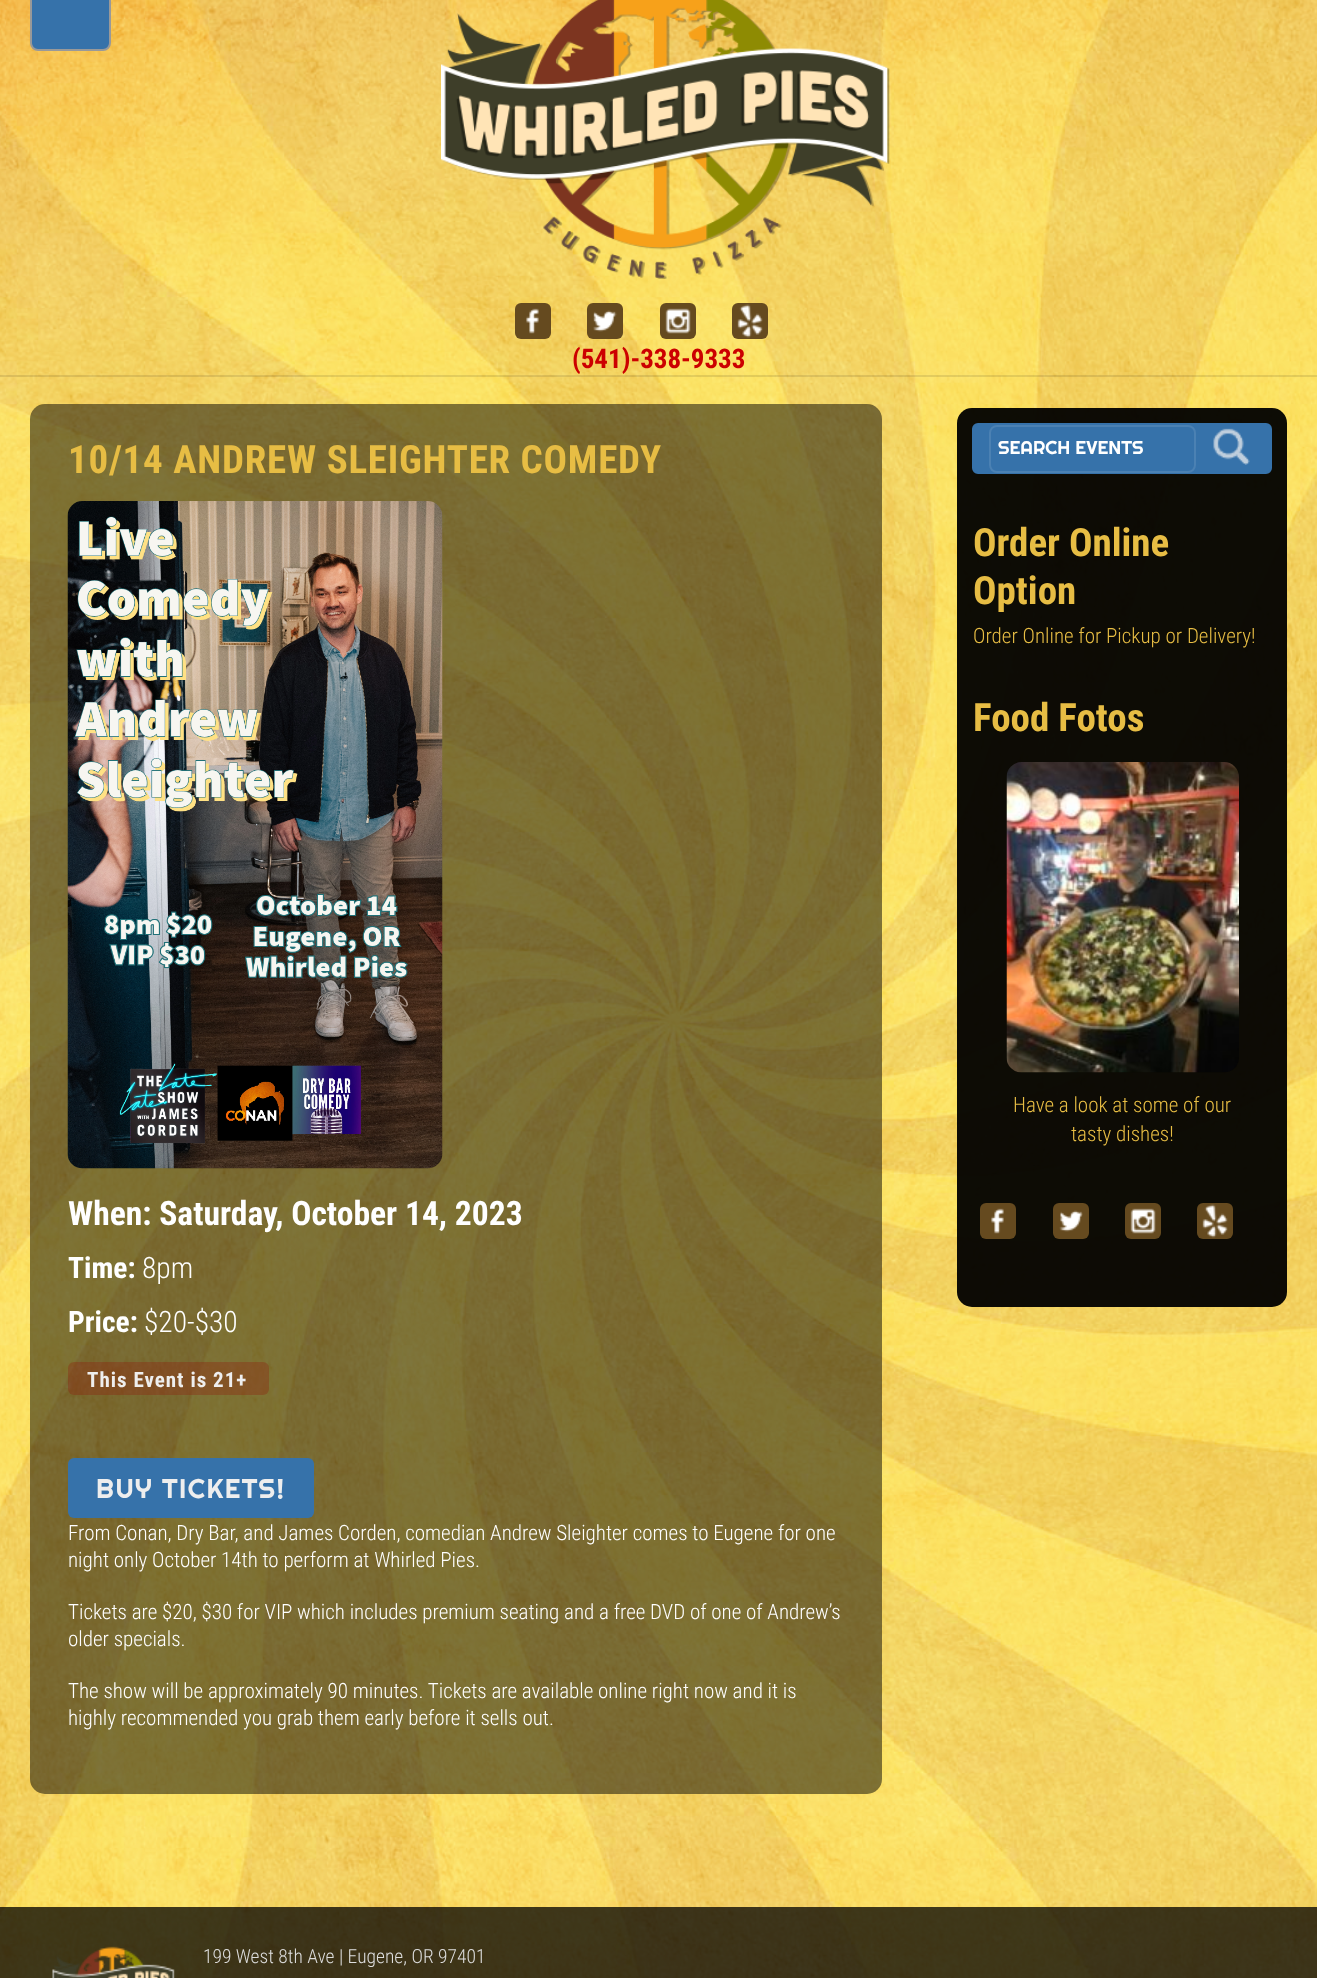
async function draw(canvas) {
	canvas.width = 1317;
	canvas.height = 1978;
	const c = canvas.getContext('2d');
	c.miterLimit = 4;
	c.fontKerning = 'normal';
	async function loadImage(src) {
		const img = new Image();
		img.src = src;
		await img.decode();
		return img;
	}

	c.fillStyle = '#fff';
	c.fillRect(0, 0, 1317, 1978);
	c.drawImage(await loadImage('img1.png'), 0, 0, 1317, 1978);
	c.fillStyle = '#0000001a';
	c.fillRect(0, 375, 1317, 2);
	c.fillStyle = '#3672aa';
	c.beginPath();
	c.roundRect(31, -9, 79, 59, 7);
	c.fill();
	c.strokeStyle = '#999';
	c.lineWidth = 2;
	c.stroke();
	c.drawImage(await loadImage('img2.png'), 441, 0, 449, 279);
	c.fillStyle = '#654a1f';
	c.beginPath();
	c.roundRect(515, 303, 36, 36, 6);
	c.fill();
	c.drawImage(await loadImage('img3.png'), 526, 308, 13, 26);
	c.beginPath();
	c.roundRect(587, 303, 36, 36, 6);
	c.fill();
	c.drawImage(await loadImage('img4.png'), 593, 310, 24, 22);
	c.beginPath();
	c.roundRect(660, 303, 36, 36, 6);
	c.fill();
	c.drawImage(await loadImage('img5.png'), 665, 308, 26, 26);
	c.beginPath();
	c.roundRect(732, 303, 36, 36, 6);
	c.fill();
	c.drawImage(await loadImage('img6.png'), 737, 304, 26, 34);
	c.font = 'bold 27px Roboto Condensed';
	c.fillStyle = '#c00';
	c.fillText('(541)-338-9333', 572, 368);
	c.fillStyle = '#00000080';
	c.beginPath();
	c.roundRect(30, 404, 852, 1390, 15);
	c.fill();
	c.letterSpacing = '0.75px';
	c.font = 'bold 39px Roboto Condensed';
	c.fillStyle = '#e7bd44';
	c.fillText('10/14 ANDREW SLEIGHTER COMEDY', 68, 473);
	c.drawImage(await loadImage('img7.png'), 67, 501, 376, 668);
	c.letterSpacing = '0px';
	c.font = 'bold 33.6px Roboto Condensed';
	c.fillStyle = '#fff';
	c.fillText('When: Saturday, October 14, 2023', 68, 1225);
	c.font = 'bold 29.5px Roboto Condensed';
	c.fillText('Time:', 68, 1278);
	c.font = '300 29.5px Roboto Condensed';
	c.fillText('8pm', 142, 1278);
	c.font = 'bold 29.5px Roboto Condensed';
	c.fillText('Price:', 68, 1332);
	c.font = '300 29.5px Roboto Condensed';
	c.fillText('$20-$30', 144, 1332);
	c.fillStyle = '#99000040';
	c.beginPath();
	c.roundRect(68, 1362, 201, 33, 6);
	c.fill();
	c.letterSpacing = '1px';
	c.font = 'bold 21px Roboto Condensed';
	c.fillStyle = '#eee';
	c.fillText('This Event is 21+', 87, 1387);
	c.fillStyle = '#3672aa';
	c.beginPath();
	c.roundRect(68, 1458, 246, 60, 6);
	c.fill();
	c.letterSpacing = '1.4px';
	c.font = '27px Righteous';
	c.fillStyle = '#eee';
	c.fillText('BUY TICKETS!', 96, 1498);
	c.letterSpacing = '0px';
	c.font = '300 21px Roboto Condensed';
	c.fillStyle = '#fff';
	for (const [text, x, y] of [
		['From Conan, Dry Bar, and James Corden, comedian Andrew Sleighter comes to Eugene for one', 68, 1540],
		['night only October 14th to perform at Whirled Pies.', 68, 1567],
		['Tickets are $20, $30 for VIP which includes premium seating and a free DVD of one of Andrew’s', 68, 1619],
		['older specials.', 68, 1646],
		['The show will be approximately 90 minutes. Tickets are available online right now and it is', 68, 1698],
		['highly recommended you grab them early before it sells out.', 68, 1725],
	]) {
		c.fillText(text, x, y);
	}
	c.fillStyle = '#000000f2';
	c.beginPath();
	c.roundRect(957, 408, 330, 899, 15);
	c.fill();
	c.fillStyle = '#3672aa';
	c.beginPath();
	c.roundRect(973, 424, 298, 49, 5);
	c.fill();
	c.strokeStyle = '#3672aa';
	c.stroke();
	c.beginPath();
	c.roundRect(990, 426, 205, 46, 7);
	c.strokeStyle = '#4b81b3';
	c.stroke();
	c.font = '18.75px Righteous';
	c.fillStyle = '#fff';
	c.fillText('SEARCH EVENTS', 998, 454);
	c.drawImage(await loadImage('img8.png'), 1213, 428, 37, 37);
	c.font = 'bold 39px Roboto Condensed';
	c.fillStyle = '#e7bd44';
	c.fillText('Order Online', 973, 556);
	c.fillText('Option', 973, 604);
	c.font = '300 21px Roboto Condensed';
	c.fillText('Order Online for Pickup or Delivery!', 973, 643);
	c.font = 'bold 39px Roboto Condensed';
	c.fillText('Food Fotos', 973, 731);
	c.drawImage(await loadImage('img9.png'), 1006, 762, 233, 311);
	c.font = '300 21px Roboto Condensed';
	c.fillText('Have a look at some of our', 1013, 1112);
	c.fillText('tasty dishes!', 1071, 1141);
	c.fillStyle = '#654a1f';
	c.beginPath();
	c.roundRect(980, 1203, 36, 36, 6);
	c.fill();
	c.drawImage(await loadImage('img3.png'), 991, 1208, 13, 26);
	c.beginPath();
	c.roundRect(1053, 1203, 36, 36, 6);
	c.fill();
	c.drawImage(await loadImage('img10.png'), 1059, 1210, 24, 22);
	c.beginPath();
	c.roundRect(1125, 1203, 36, 36, 6);
	c.fill();
	c.drawImage(await loadImage('img11.png'), 1130, 1208, 26, 26);
	c.beginPath();
	c.roundRect(1197, 1203, 36, 36, 6);
	c.fill();
	c.drawImage(await loadImage('img6.png'), 1202, 1204, 26, 34);
	c.fillStyle = '#00000080';
	c.fillRect(0, 1907, 1317, 71);
	c.fillRect(0, 1907, 1317, 71);
	c.drawImage(await loadImage('img12.png'), 52, 1946, 123, 32);
	c.font = '300 19.5px Roboto Condensed';
	c.fillStyle = '#ddd';
	c.fillText('199 West 8th Ave | Eugene, OR 97401', 203, 1963);
}

draw(document.querySelector('canvas'));
